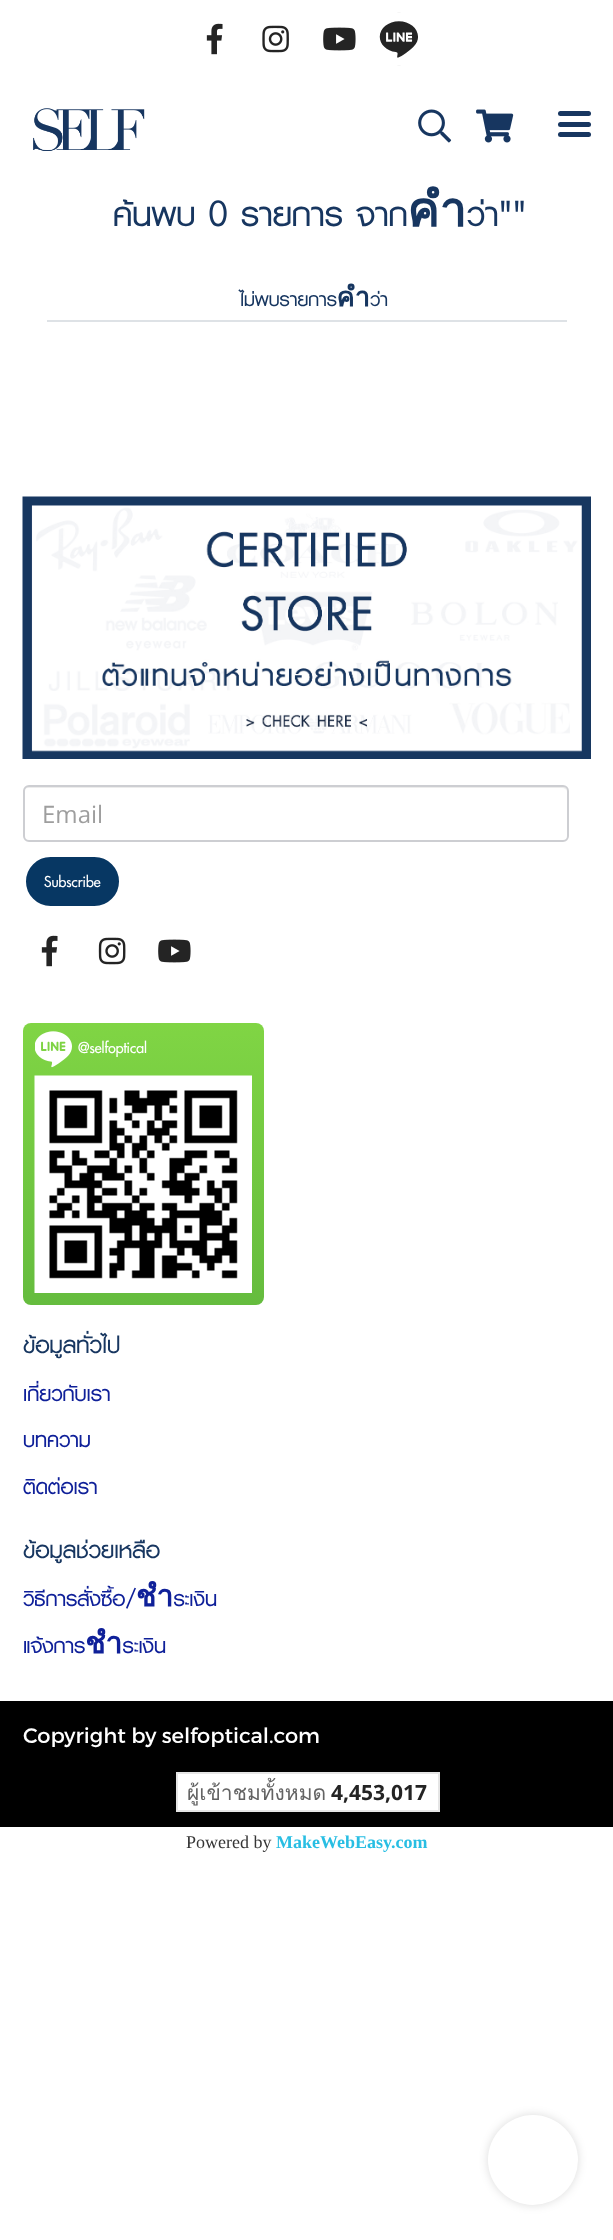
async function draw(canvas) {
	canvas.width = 613;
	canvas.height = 2240;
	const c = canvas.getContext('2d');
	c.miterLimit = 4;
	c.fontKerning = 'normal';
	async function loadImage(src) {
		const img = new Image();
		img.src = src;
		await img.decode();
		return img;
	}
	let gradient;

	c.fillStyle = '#fff';
	c.fillRect(0, 0, 613, 2240);
	c.drawImage(await loadImage('img1.png'), 206, 23, 17, 32);
	c.drawImage(await loadImage('img2.png'), 262, 25, 27, 28);
	c.drawImage(await loadImage('img3.png'), 323, 27, 33, 24);
	c.drawImage(await loadImage('img4.png'), 379, 12, 39, 54);
	c.drawImage(await loadImage('img5.png'), 33, 108, 112, 43);
	c.drawImage(await loadImage('img6.png'), 418, 109, 34, 34);
	c.drawImage(await loadImage('img7.png'), 476, 109, 38, 34);
	c.fillStyle = '#173660';
	c.beginPath();
	c.roundRect(558, 122, 33, 5, 2.5);
	c.fill();
	c.beginPath();
	c.roundRect(558, 111, 33, 5, 2.5);
	c.fill();
	c.beginPath();
	c.roundRect(558, 132, 33, 5, 2.5);
	c.fill();
	c.font = 'bold 48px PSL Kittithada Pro';
	c.fillText('ค้นพบ 0 รายการ จากคำว่า""', 113, 226);
	c.fillStyle = '#dee2e6';
	c.fillRect(47, 320, 520, 2);
	c.font = 'bold 27px PSL Kittithada Pro';
	c.fillStyle = '#173660';
	c.fillText('ไม่พบรายการคำว่า', 240, 306);
	c.drawImage(await loadImage('img8.png'), 22, 496, 569, 263);
	c.fillStyle = '#ececec';
	c.beginPath();
	c.moveTo(28, 788);
	c.lineTo(562, 788);
	c.bezierCurveTo(565, 788, 567, 790, 567, 792);
	c.bezierCurveTo(567, 789, 565, 786, 562, 786);
	c.lineTo(29, 786);
	c.bezierCurveTo(26, 786, 24, 789, 24, 792);
	c.bezierCurveTo(24, 790, 26, 788, 28, 788);
	c.closePath();
	c.fill();
	c.beginPath();
	c.roundRect(24, 786, 544, 55, 5);
	c.strokeStyle = '#cdced2';
	c.lineWidth = 2;
	c.stroke();
	c.font = '24px Open Sans';
	c.fillStyle = '#9e9e9e';
	c.fillText('Email', 42, 823);
	c.fillStyle = '#073763';
	c.beginPath();
	c.roundRect(24.5, 855.5, 96, 52, 26);
	c.fill();
	c.strokeStyle = '#fff';
	c.lineWidth = 3;
	c.stroke();
	c.font = 'bold 21px PSL Kittithada Pro';
	c.fillStyle = '#fff';
	c.fillText('Subscribe', 44, 887);
	c.drawImage(await loadImage('img1.png'), 41, 935, 17, 32);
	c.drawImage(await loadImage('img9.png'), 98, 937, 28, 28);
	c.drawImage(await loadImage('img3.png'), 158, 939, 33, 24);
	gradient = c.createLinearGradient(143, 1023, 143, 1305);
	gradient.addColorStop(0, '#80d544');
	gradient.addColorStop(1, '#65bc3e');
	c.fillStyle = gradient;
	c.beginPath();
	c.roundRect(23, 1023, 241, 282, 8);
	c.fill();
	c.drawImage(await loadImage('img10.png'), 35, 1031, 37, 37);
	c.fillStyle = '#fff';
	c.fillText('@selfoptical', 78, 1053);
	c.drawImage(await loadImage('img11.png'), 34, 1075, 218, 218);
	c.font = 'bold 33px PSL Kittithada Pro';
	c.fillStyle = '#173660';
	c.fillText('ข้อมูลทั่วไป', 23, 1353);
	c.font = 'bold 30px PSL Kittithada Pro';
	c.fillStyle = '#0f2099';
	for (const [text, x, y] of [
		['เกี่ยวกับเรา', 23, 1401],
		['บทความ', 23, 1447],
		['ติดต่อเรา', 23, 1494],
	]) {
		c.fillText(text, x, y);
	}
	c.font = 'bold 33px PSL Kittithada Pro';
	c.fillStyle = '#173660';
	c.fillText('ข้อมูลช่วยเหลือ', 23, 1558);
	c.font = 'bold 30px PSL Kittithada Pro';
	c.fillStyle = '#0f2099';
	c.fillText('วิธีการสั่งซื้อ/ชำระเงิน', 23, 1606);
	c.fillText('แจ้งการชำระเงิน', 23, 1653);
	c.fillStyle = '#000';
	c.fillRect(0, 1701, 613, 126);
	c.font = '21px Montserrat';
	c.fillStyle = '#fff';
	c.fillText('Copyright by selfoptical.com', 23, 1743);
	c.beginPath();
	c.rect(177, 1773, 262, 38);
	c.fill();
	c.strokeStyle = '#e5e5e5';
	c.lineWidth = 2;
	c.stroke();
	c.font = '21px Loma';
	c.fillStyle = '#636363';
	c.fillText('ผู้เข้าชมทั้งหมด', 187, 1800);
	c.font = 'bold 21px Open Sans';
	c.fillStyle = '#242424';
	c.fillText('4,453,017', 331, 1800);
	c.font = '18px Liberation Serif';
	c.fillStyle = '#353535';
	c.fillText('Powered by', 186, 1848);
	c.font = 'bold 18px Liberation Serif';
	c.fillStyle = '#28bee3';
	c.fillText('MakeWebEasy.com', 276, 1848);
	c.fillStyle = '#00000024';
	c.filter = 'blur(5px)';
	c.beginPath();
	c.roundRect(488, 2115, 90, 90, 45);
	c.fill();
	c.filter = 'none';
	c.fillStyle = '#fff';
	c.beginPath();
	c.arc(533, 2160, 45, 0, 2 * Math.PI);
	c.fill();
}

draw(document.querySelector('canvas'));
